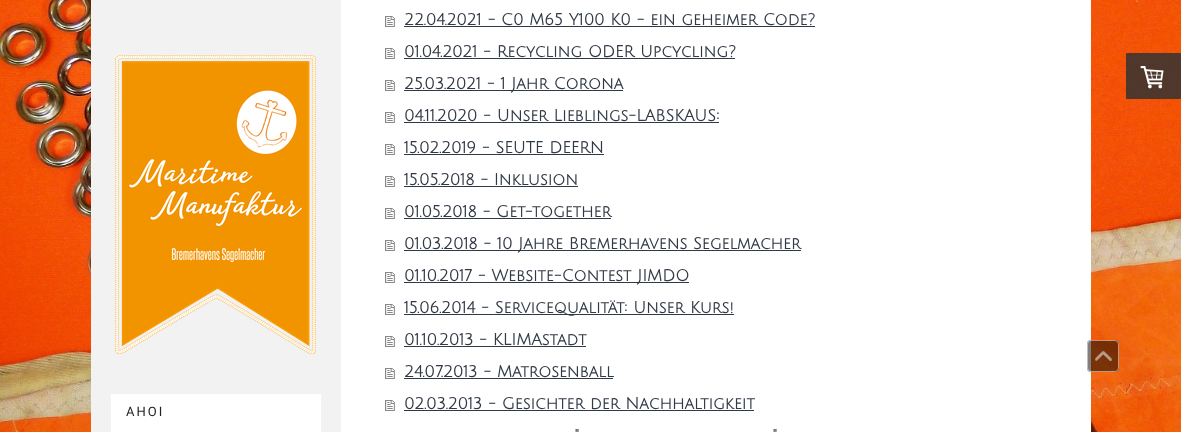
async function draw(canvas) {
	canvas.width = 1181;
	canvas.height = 432;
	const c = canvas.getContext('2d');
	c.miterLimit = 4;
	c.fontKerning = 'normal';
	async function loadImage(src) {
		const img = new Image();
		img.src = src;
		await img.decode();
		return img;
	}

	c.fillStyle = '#fff';
	c.fillRect(0, 0, 1181, 432);
	c.drawImage(await loadImage('img1.png'), 0, 0, 1181, 432);
	c.fillRect(341, 0, 750, 432);
	c.drawImage(await loadImage('img2.png'), 385, 16, 10, 11);
	c.font = 'bold 16px Julius Sans One';
	c.fillStyle = '#303a47';
	c.fillText('22.04.2021 - C0 M65 Y100 K0 - ein geheimer Code?', 404, 25);
	c.fillRect(404, 26, 411, 1);
	c.drawImage(await loadImage('img2.png'), 385, 48, 10, 11);
	c.fillText('01.04.2021 - Recycling ODER Upcycling?', 404, 57);
	c.fillRect(404, 58, 331, 1);
	c.drawImage(await loadImage('img2.png'), 385, 80, 10, 11);
	c.fillRect(404, 90, 219, 1);
	c.fillText('25.03.2021 - 1 Jahr Corona', 404, 89);
	c.drawImage(await loadImage('img2.png'), 385, 112, 10, 11);
	c.fillText('04.11.2020 - Unser Lieblings-LABSKAUS:', 404, 121);
	c.fillRect(404, 122, 315, 1);
	c.drawImage(await loadImage('img2.png'), 385, 144, 10, 11);
	c.fillText('15.02.2019 - SEUTE DEERN', 404, 153);
	c.fillRect(404, 154, 200, 1);
	c.drawImage(await loadImage('img2.png'), 385, 176, 10, 11);
	c.fillText('15.05.2018 - Inklusion', 404, 185);
	c.fillRect(404, 186, 174, 1);
	c.drawImage(await loadImage('img2.png'), 385, 208, 10, 11);
	c.fillText('01.05.2018 - Get-together', 404, 217);
	c.fillRect(404, 218, 207, 1);
	c.drawImage(await loadImage('img2.png'), 385, 240, 10, 11);
	c.fillRect(404, 250, 397, 1);
	c.fillText('01.03.2018 - 10 Jahre Bremerhavens Segelmacher', 404, 249);
	c.drawImage(await loadImage('img2.png'), 385, 272, 10, 11);
	c.fillRect(404, 282, 285, 1);
	c.fillText('01.10.2017 - Website-Contest JIMDO', 404, 281);
	c.drawImage(await loadImage('img2.png'), 385, 304, 10, 11);
	c.fillRect(404, 314, 330, 1);
	c.fillText('15.06.2014 - Servicequalität: Unser Kurs!', 404, 313);
	c.drawImage(await loadImage('img2.png'), 385, 336, 10, 11);
	c.fillText('01.10.2013 - KLIMAstadt', 404, 345);
	c.fillRect(404, 346, 182, 1);
	c.drawImage(await loadImage('img2.png'), 385, 368, 10, 11);
	c.fillText('24.07.2013 - Matrosenball', 404, 377);
	c.fillRect(404, 378, 209, 1);
	c.drawImage(await loadImage('img2.png'), 385, 400, 10, 11);
	c.fillText('02.03.2013 - Gesichter der Nachhaltigkeit', 404, 409);
	c.fillRect(404, 410, 350, 1);
	c.fillText('"', 575, 441);
	c.fillText('"', 773, 441);
	c.fillStyle = '#333333d9';
	c.beginPath();
	c.roundRect(1126, 53, 55, 46, 1);
	c.fill();
	c.drawImage(await loadImage('img3.png'), 1140, 66, 24, 23);
	c.fillStyle = '#f2f2f2';
	c.fillRect(91, 0, 250, 432);
	c.drawImage(await loadImage('img4.png'), 115, 55, 201, 299);
	c.fillStyle = '#fff';
	c.fillRect(111, 394, 210, 38);
	c.letterSpacing = '2px';
	c.font = '13px Roboto';
	c.fillStyle = '#212529';
	c.fillText('AHOI', 126, 416);
	c.fillStyle = '#00000080';
	c.beginPath();
	c.roundRect(1087, 340, 32, 32, 4);
	c.fill();
	c.beginPath();
	c.roundRect(1087.5, 340.5, 31, 31, 3.5);
	c.strokeStyle = '#ffffff80';
	c.stroke();
	c.drawImage(await loadImage('img5.png'), 1095, 351, 17, 10);
}

draw(document.querySelector('canvas'));
